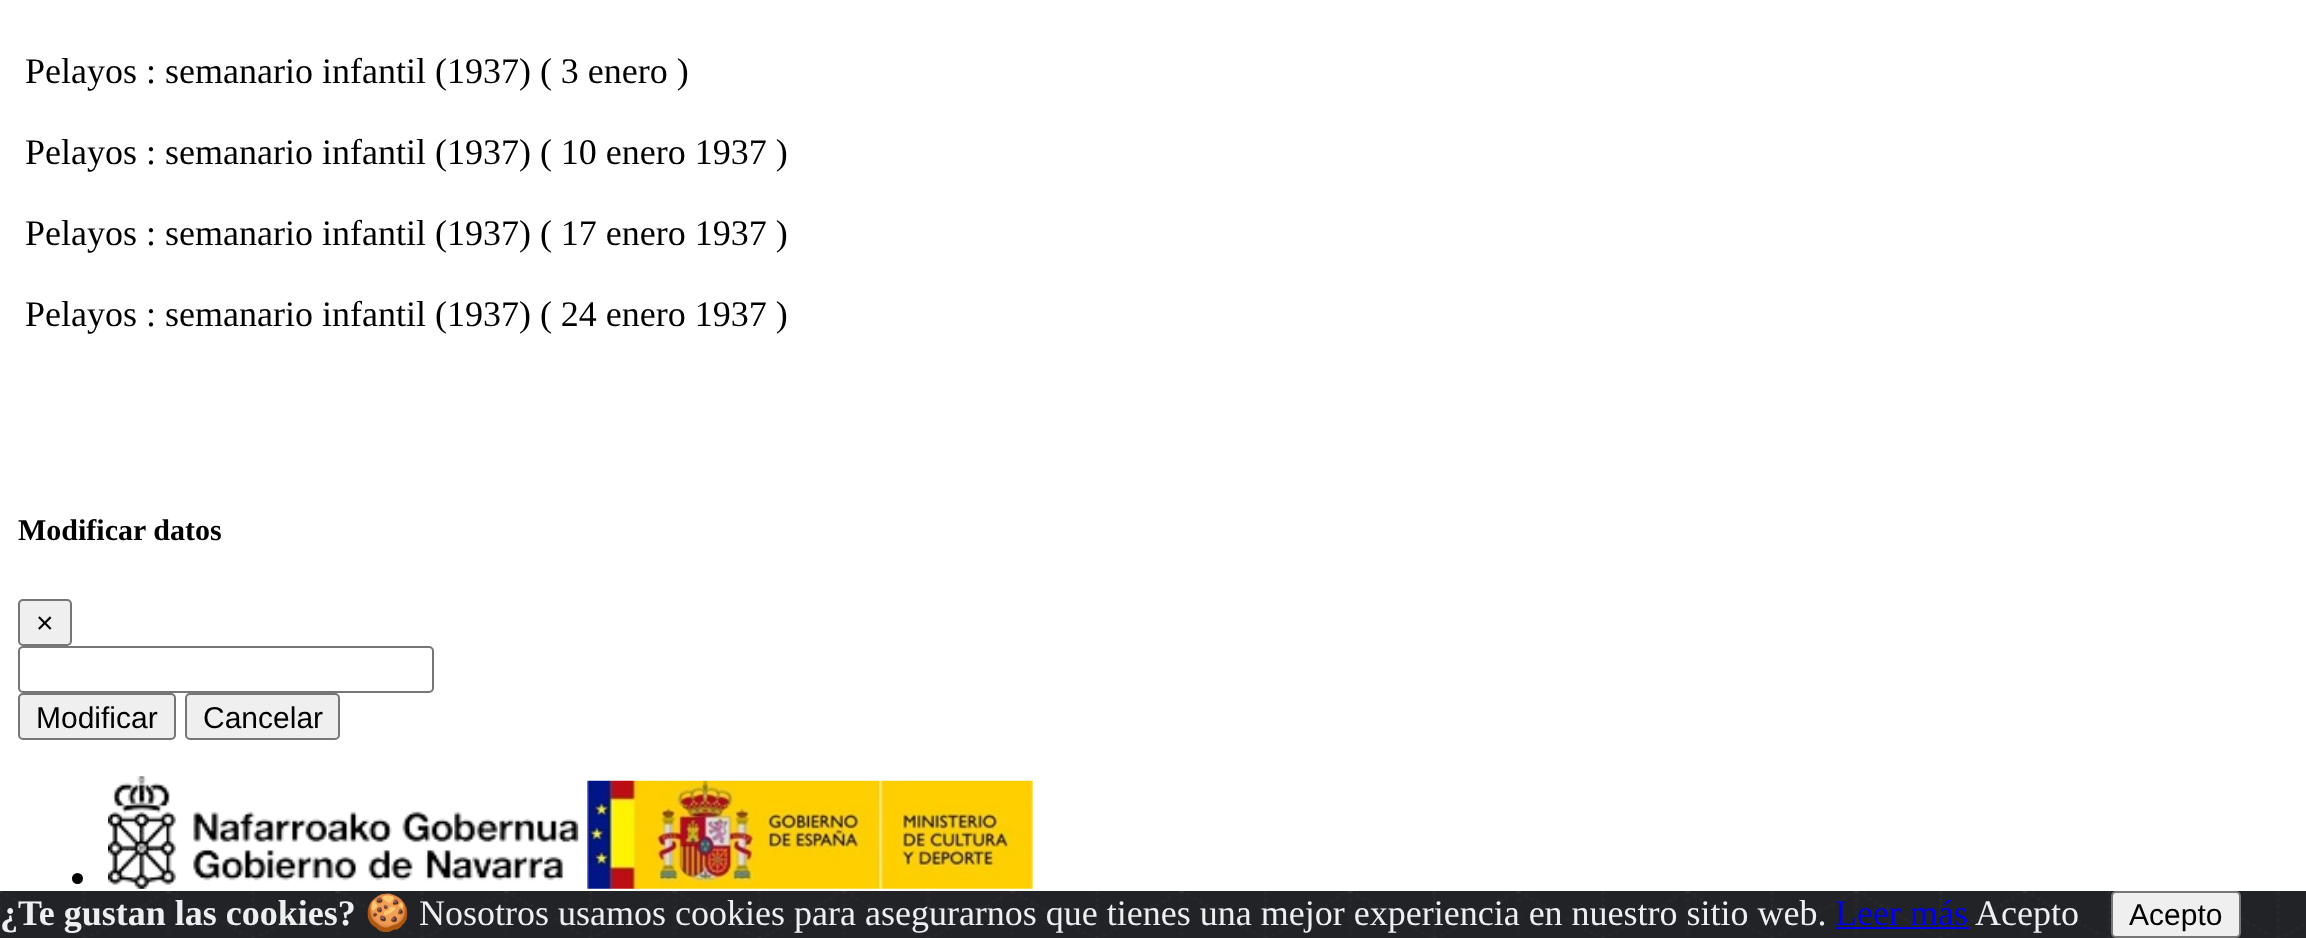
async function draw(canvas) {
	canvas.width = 2306;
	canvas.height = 938;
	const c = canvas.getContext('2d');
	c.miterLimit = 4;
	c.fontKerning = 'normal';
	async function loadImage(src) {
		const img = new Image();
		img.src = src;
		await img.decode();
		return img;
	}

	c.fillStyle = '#fff';
	c.fillRect(0, 0, 2306, 938);
	c.font = '36px Liberation Serif';
	c.fillStyle = '#000';
	for (const [text, x, y] of [
		['Pelayos : semanario infantil (1937) ( 3 enero )', 25, 83],
		['Pelayos : semanario infantil (1937) ( 10 enero 1937 )', 25, 164],
		['Pelayos : semanario infantil (1937) ( 17 enero 1937 )', 25, 245],
		['Pelayos : semanario infantil (1937) ( 24 enero 1937 )', 25, 326],
	]) {
		c.fillText(text, x, y);
	}
	c.font = 'bold 30px Liberation Serif';
	c.fillText('Modificar datos', 18, 540);
	c.fillStyle = '#efefef';
	c.beginPath();
	c.roundRect(19, 600, 52, 45, 4);
	c.fill();
	c.strokeStyle = '#767676';
	c.lineWidth = 2;
	c.stroke();
	c.font = '30px Liberation Sans';
	c.fillStyle = '#000';
	c.fillText('×', 36, 633);
	c.beginPath();
	c.roundRect(19, 647, 414, 45, 4);
	c.stroke();
	c.fillStyle = '#efefef';
	c.beginPath();
	c.roundRect(19, 694, 156, 45, 4);
	c.fill();
	c.stroke();
	c.fillStyle = '#000';
	c.fillText('Modificar', 36, 728);
	c.fillStyle = '#efefef';
	c.beginPath();
	c.roundRect(186, 694, 153, 45, 4);
	c.fill();
	c.stroke();
	c.fillStyle = '#000';
	c.fillText('Cancelar', 203, 728);
	c.beginPath();
	c.arc(77.5, 878.5, 5.5, 0, 2 * Math.PI);
	c.fill();
	c.drawImage(await loadImage('img1.png'), 108, 776, 471, 113);
	c.drawImage(await loadImage('img2.png'), 587, 780, 446, 109);
	c.fillStyle = '#212327';
	c.fillRect(2304, 891, 2, 47);
	c.drawImage(await loadImage('img3.png'), 0, 891, 2304, 47);
	c.font = 'bold 36px Liberation Serif';
	c.fillStyle = '#ecf0f1';
	c.fillText('¿Te gustan las cookies?', 0, 925);
	c.font = '36px Noto Color Emoji';
	c.fillText('🍪', 365, 925);
	c.font = '36px Liberation Serif';
	c.fillText('Nosotros usamos cookies para asegurarnos que tienes una mejor experiencia en nuestro sitio web.', 419, 925);
	c.fillStyle = '#00e';
	c.fillText('Leer más', 1835, 925);
	c.fillRect(1836, 927, 133, 2);
	c.fillStyle = '#ecf0f1';
	c.fillText('Acepto', 1975, 925);
	c.fillStyle = '#efefef';
	c.beginPath();
	c.roundRect(2112, 892, 128, 45, 4);
	c.fill();
	c.stroke();
	c.font = '30px Liberation Sans';
	c.fillStyle = '#000';
	c.fillText('Acepto', 2129, 925);
}

draw(document.querySelector('canvas'));
